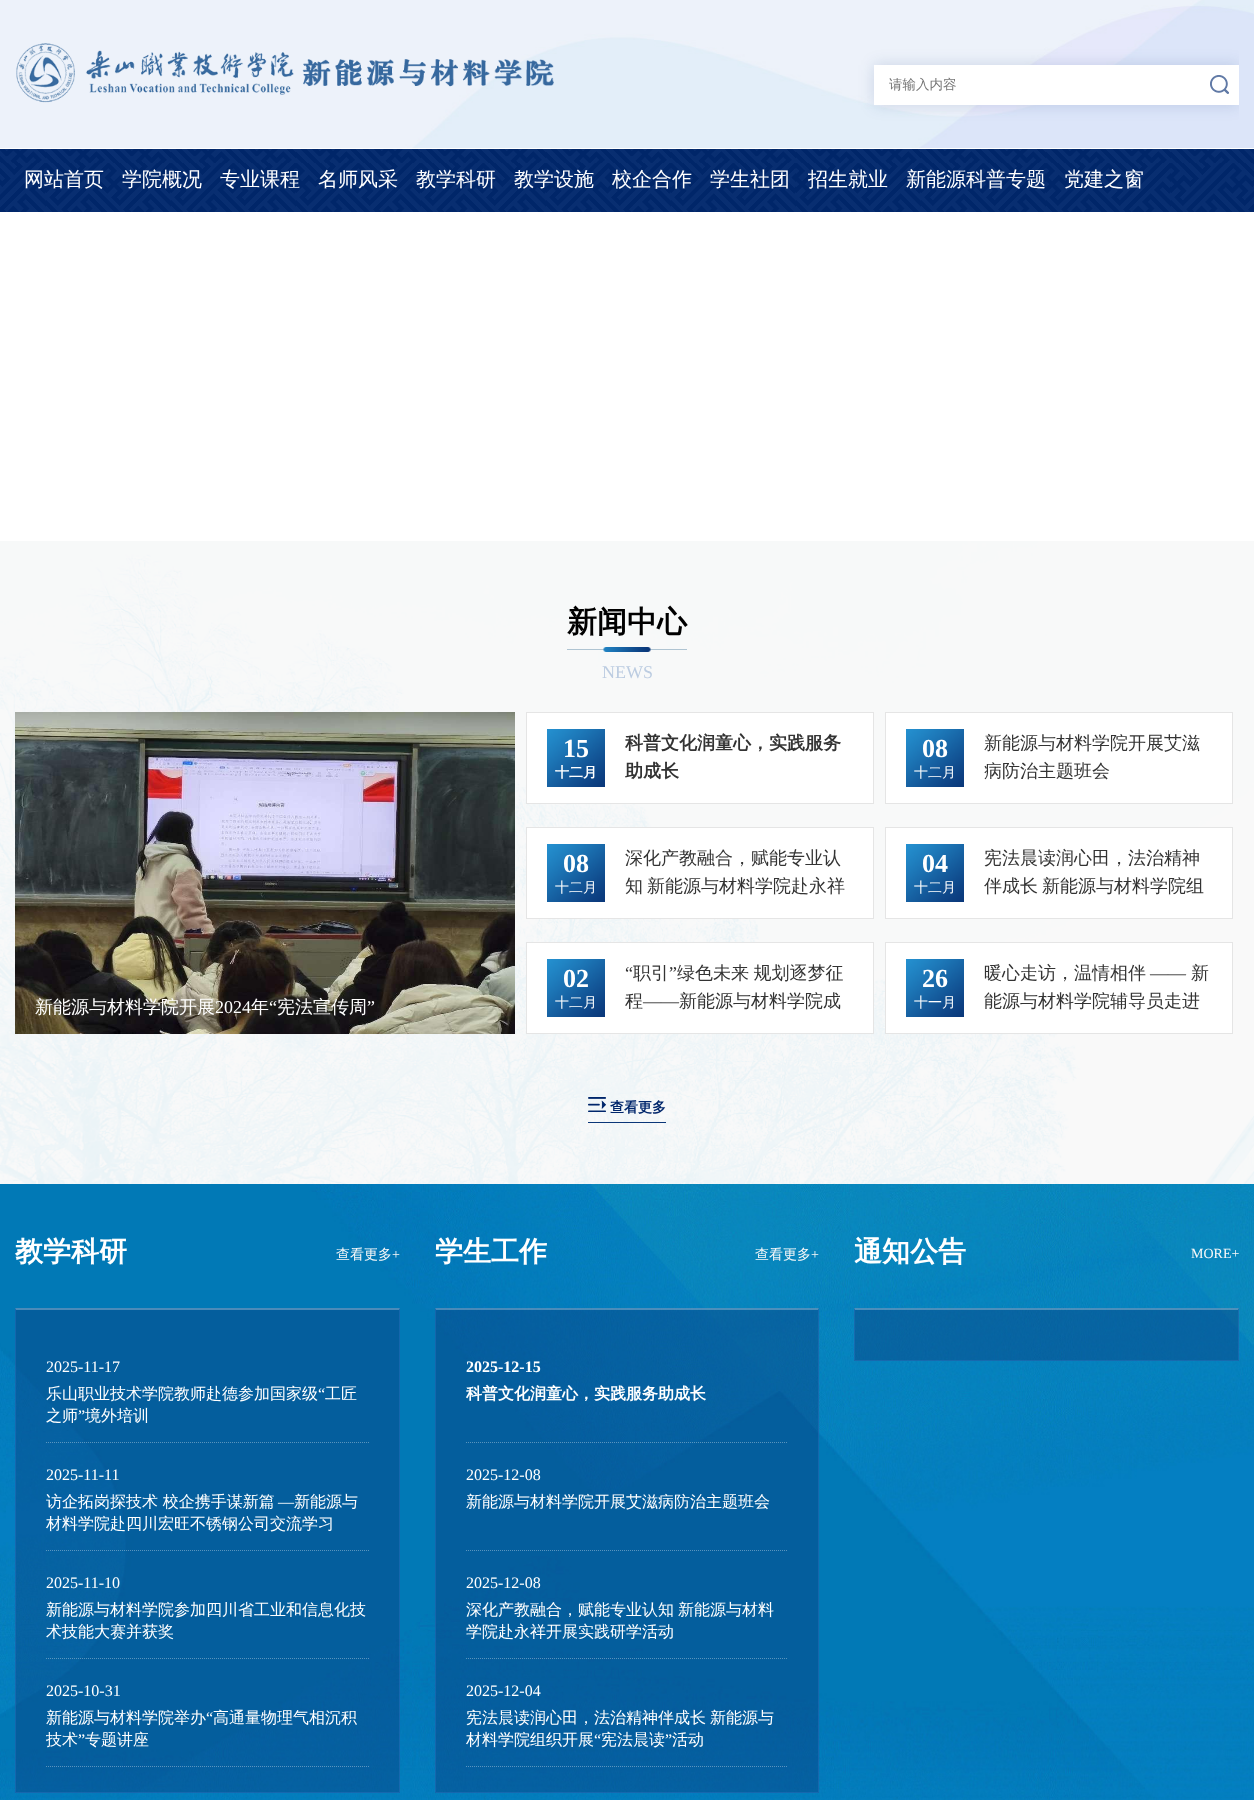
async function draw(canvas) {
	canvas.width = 1254;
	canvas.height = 1800;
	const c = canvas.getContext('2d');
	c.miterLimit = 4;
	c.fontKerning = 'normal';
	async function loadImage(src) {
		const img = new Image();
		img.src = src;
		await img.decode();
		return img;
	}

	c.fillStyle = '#fff';
	c.fillRect(0, 0, 1254, 1800);
	c.drawImage(await loadImage('img1.png'), 0, 0, 1254, 148);
	c.drawImage(await loadImage('img2.png'), 16, 43, 538, 60);
	c.save();
	c.beginPath();
	c.rect(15, 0, 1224, 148);
	c.clip();
	c.fillStyle = '#00266926';
	c.filter = 'blur(8px)';
	c.beginPath();
	c.rect(874, 65, 365, 40);
	c.fill();
	c.filter = 'none';
	c.restore();
	c.fillRect(874, 65, 365, 40);
	c.font = '500 13.5px WenQuanYi Zen Hei';
	c.fillStyle = '#757575';
	c.fillText('请输入内容', 889, 89);
	c.drawImage(await loadImage('img3.png'), 1210, 75, 19, 19);
	c.drawImage(await loadImage('img4.png'), 0, 149, 1254, 63);
	c.font = '500 20px WenQuanYi Zen Hei';
	c.fillStyle = '#fff';
	for (const [text, x, y] of [
		['网站首页', 24, 186],
		['学院概况', 122, 186],
		['专业课程', 220, 186],
		['名师风采', 318, 186],
		['教学科研', 416, 186],
		['教学设施', 514, 186],
		['校企合作', 612, 186],
		['学生社团', 710, 186],
		['招生就业', 808, 186],
		['新能源科普专题', 906, 186],
		['党建之窗', 1064, 186],
	]) {
		c.fillText(text, x, y);
	}
	c.drawImage(await loadImage('img5.png'), 0, 541, 1254, 643);
	c.drawImage(await loadImage('img6.png'), 567, 647, 120, 5);
	c.font = 'bold 30px WenQuanYi Zen Hei';
	c.fillStyle = '#000';
	c.fillText('新闻中心', 567, 632);
	c.font = '18px Liberation Serif';
	c.fillStyle = '#bccce1';
	c.fillText('NEWS', 602, 678);
	c.drawImage(await loadImage('img7.png'), 15, 712, 500, 322);
	c.font = '500 18px WenQuanYi Zen Hei';
	c.fillStyle = '#fff';
	c.fillText('新能源与材料学院开展', 35, 1013);
	c.font = '18px Liberation Serif';
	c.fillText('2024', 215, 1013);
	c.font = '500 18px WenQuanYi Zen Hei';
	c.fillText('年', 251, 1013);
	c.font = '18px Liberation Serif';
	c.fillText('“', 269, 1013);
	c.font = '500 18px WenQuanYi Zen Hei';
	c.fillText('宪法宣传周', 277, 1013);
	c.font = '18px Liberation Serif';
	c.fillText('”', 367, 1013);
	c.strokeStyle = '#e5e5e5';
	c.strokeRect(526.5, 712.5, 347, 91);
	c.fillRect(527, 713, 346, 90);
	c.drawImage(await loadImage('img8.png'), 547, 729, 58, 58);
	c.font = 'bold 26px Liberation Serif';
	c.fillText('15', 563, 757);
	c.font = 'bold 14px WenQuanYi Zen Hei';
	c.fillText('十二月', 555, 777);
	c.font = 'bold 18px WenQuanYi Zen Hei';
	c.fillStyle = '#333';
	c.fillText('科普文化润童心，实践服务', 625, 749);
	c.fillText('助成长', 625, 777);
	c.strokeRect(885.5, 712.5, 347, 91);
	c.fillStyle = '#fff';
	c.fillRect(886, 713, 346, 90);
	c.drawImage(await loadImage('img8.png'), 906, 729, 58, 58);
	c.font = 'bold 26px Liberation Serif';
	c.fillText('08', 922, 757);
	c.font = '500 14px WenQuanYi Zen Hei';
	c.fillText('十二月', 914, 777);
	c.font = '500 18px WenQuanYi Zen Hei';
	c.fillStyle = '#333';
	c.fillText('新能源与材料学院开展艾滋', 984, 749);
	c.fillText('病防治主题班会', 984, 777);
	c.strokeRect(526.5, 827.5, 347, 91);
	c.fillStyle = '#fff';
	c.fillRect(527, 828, 346, 90);
	c.drawImage(await loadImage('img8.png'), 547, 844, 58, 58);
	c.font = 'bold 26px Liberation Serif';
	c.fillText('08', 563, 872);
	c.font = '500 14px WenQuanYi Zen Hei';
	c.fillText('十二月', 555, 892);
	c.font = '500 18px WenQuanYi Zen Hei';
	c.fillStyle = '#333';
	for (const [text, x, y] of [
		['深化产教融合，赋能专业认', 625, 864],
		['知', 625, 892],
		['新能源与材料学院赴永祥', 647, 892],
	]) {
		c.fillText(text, x, y);
	}
	c.strokeRect(885.5, 827.5, 347, 91);
	c.fillStyle = '#fff';
	c.fillRect(886, 828, 346, 90);
	c.drawImage(await loadImage('img8.png'), 906, 844, 58, 58);
	c.font = 'bold 26px Liberation Serif';
	c.fillText('04', 922, 872);
	c.font = '500 14px WenQuanYi Zen Hei';
	c.fillText('十二月', 914, 892);
	c.font = '500 18px WenQuanYi Zen Hei';
	c.fillStyle = '#333';
	for (const [text, x, y] of [
		['宪法晨读润心田，法治精神', 984, 864],
		['伴成长', 984, 892],
		['新能源与材料学院组', 1042, 892],
	]) {
		c.fillText(text, x, y);
	}
	c.strokeRect(526.5, 942.5, 347, 91);
	c.fillStyle = '#fff';
	c.fillRect(527, 943, 346, 90);
	c.drawImage(await loadImage('img8.png'), 547, 959, 58, 58);
	c.font = 'bold 26px Liberation Serif';
	c.fillText('02', 563, 987);
	c.font = '500 14px WenQuanYi Zen Hei';
	c.fillText('十二月', 555, 1007);
	c.font = '18px Liberation Serif';
	c.fillStyle = '#333';
	c.fillText('“', 625, 979);
	c.font = '500 18px WenQuanYi Zen Hei';
	c.fillText('职引', 633, 979);
	c.font = '18px Liberation Serif';
	c.fillText('”', 669, 979);
	c.wordSpacing = '-1px';
	c.font = '500 18px WenQuanYi Zen Hei';
	c.fillText('绿色未来 规划逐梦征', 677, 979);
	c.wordSpacing = '0px';
	c.fillText('程', 625, 1007);
	c.font = '18px Liberation Serif';
	c.fillText('——', 643, 1007);
	c.font = '500 18px WenQuanYi Zen Hei';
	c.fillText('新能源与材料学院成', 679, 1007);
	c.strokeRect(885.5, 942.5, 347, 91);
	c.fillStyle = '#fff';
	c.fillRect(886, 943, 346, 90);
	c.drawImage(await loadImage('img8.png'), 906, 959, 58, 58);
	c.font = 'bold 26px Liberation Serif';
	c.fillText('26', 922, 987);
	c.font = '500 14px WenQuanYi Zen Hei';
	c.fillText('十一月', 914, 1007);
	c.font = '500 18px WenQuanYi Zen Hei';
	c.fillStyle = '#333';
	c.fillText('暖心走访，温情相伴', 984, 979);
	c.font = '18px Liberation Serif';
	c.fillText('——', 1150, 979);
	c.font = '500 18px WenQuanYi Zen Hei';
	c.fillText('新', 1191, 979);
	c.fillText('能源与材料学院辅导员走进', 984, 1007);
	c.fillStyle = '#0a3678';
	c.fillRect(588, 1122, 78, 1);
	c.drawImage(await loadImage('img9.png'), 588, 1097, 18, 15);
	c.font = 'bold 14px WenQuanYi Zen Hei';
	c.fillStyle = '#00266b';
	c.fillText('查看更多', 610, 1112);
	c.drawImage(await loadImage('img10.png'), 0, 1184, 1254, 616);
	c.font = 'bold 28px WenQuanYi Zen Hei';
	c.fillStyle = '#fff';
	c.fillText('教学科研', 15, 1261);
	c.font = '500 14px WenQuanYi Zen Hei';
	c.fillStyle = '#f9f9f9';
	c.fillText('查看更多', 336, 1259);
	c.font = '14px Liberation Serif';
	c.fillText('+', 392, 1259);
	c.fillStyle = '#0a367866';
	c.fillRect(15, 1308, 385, 485);
	c.fillStyle = '#4b8bb9';
	c.beginPath();
	c.moveTo(15, 1308);
	c.lineTo(400, 1308);
	c.lineTo(399, 1310);
	c.lineTo(16, 1310);
	c.closePath();
	c.fill();
	c.fillStyle = '#2f74c266';
	c.beginPath();
	c.moveTo(400, 1308);
	c.lineTo(400, 1793);
	c.lineTo(399, 1792);
	c.lineTo(399, 1310);
	c.closePath();
	c.fill();
	c.beginPath();
	c.moveTo(400, 1793);
	c.lineTo(15, 1793);
	c.lineTo(16, 1792);
	c.lineTo(399, 1792);
	c.closePath();
	c.fill();
	c.beginPath();
	c.moveTo(15, 1793);
	c.lineTo(15, 1308);
	c.lineTo(16, 1310);
	c.lineTo(16, 1792);
	c.closePath();
	c.fill();
	c.beginPath();
	c.moveTo(46, 1442.5);
	c.lineTo(369, 1442.5);
	c.strokeStyle = '#fefdfd57';
	c.setLineDash([1, 1]);
	c.stroke();
	c.font = '16px Liberation Serif';
	c.fillStyle = '#fff';
	c.fillText('2025-11-17', 46, 1372);
	c.font = '500 16px WenQuanYi Zen Hei';
	c.fillText('乐山职业技术学院教师赴德参加国家级', 46, 1399);
	c.font = '16px Liberation Serif';
	c.fillText('“', 318, 1399);
	c.font = '500 16px WenQuanYi Zen Hei';
	c.fillText('工匠', 325, 1399);
	c.fillText('之师', 46, 1421);
	c.font = '16px Liberation Serif';
	c.fillText('”', 78, 1421);
	c.font = '500 16px WenQuanYi Zen Hei';
	c.fillText('境外培训', 85, 1421);
	c.beginPath();
	c.moveTo(46, 1550.5);
	c.lineTo(369, 1550.5);
	c.stroke();
	c.font = '16px Liberation Serif';
	c.fillText('2025-11-11', 46, 1480);
	c.font = '500 16px WenQuanYi Zen Hei';
	c.fillText('访企拓岗探技术 校企携手谋新篇', 46, 1507);
	c.font = '16px Liberation Serif';
	c.fillText('—', 278, 1507);
	c.font = '500 16px WenQuanYi Zen Hei';
	c.fillText('新能源与', 294, 1507);
	c.fillText('材料学院赴四川宏旺不锈钢公司交流学习', 46, 1529);
	c.beginPath();
	c.moveTo(46, 1658.5);
	c.lineTo(369, 1658.5);
	c.stroke();
	c.font = '16px Liberation Serif';
	c.fillText('2025-11-10', 46, 1588);
	c.font = '500 16px WenQuanYi Zen Hei';
	c.fillText('新能源与材料学院参加四川省工业和信息化技', 46, 1615);
	c.fillText('术技能大赛并获奖', 46, 1637);
	c.beginPath();
	c.moveTo(46, 1766.5);
	c.lineTo(369, 1766.5);
	c.stroke();
	c.font = '16px Liberation Serif';
	c.fillText('2025-10-31', 46, 1696);
	c.font = '500 16px WenQuanYi Zen Hei';
	c.fillText('新能源与材料学院举办', 46, 1723);
	c.font = '16px Liberation Serif';
	c.fillText('“', 206, 1723);
	c.font = '500 16px WenQuanYi Zen Hei';
	c.fillText('高通量物理气相沉积', 213, 1723);
	c.fillText('技术', 46, 1745);
	c.font = '16px Liberation Serif';
	c.fillText('”', 78, 1745);
	c.font = '500 16px WenQuanYi Zen Hei';
	c.fillText('专题讲座', 85, 1745);
	c.font = 'bold 28px WenQuanYi Zen Hei';
	c.fillText('学生工作', 435, 1261);
	c.font = '500 14px WenQuanYi Zen Hei';
	c.fillStyle = '#f9f9f9';
	c.fillText('查看更多', 755, 1259);
	c.font = '14px Liberation Serif';
	c.fillText('+', 811, 1259);
	c.fillStyle = '#0a367866';
	c.fillRect(435, 1308, 384, 485);
	c.fillStyle = '#ffffff47';
	c.beginPath();
	c.moveTo(435, 1308);
	c.lineTo(819, 1308);
	c.lineTo(818, 1310);
	c.lineTo(436, 1310);
	c.closePath();
	c.fill();
	c.fillStyle = '#2f74c266';
	c.beginPath();
	c.moveTo(819, 1308);
	c.lineTo(819, 1793);
	c.lineTo(818, 1792);
	c.lineTo(818, 1310);
	c.closePath();
	c.fill();
	c.beginPath();
	c.moveTo(819, 1793);
	c.lineTo(435, 1793);
	c.lineTo(436, 1792);
	c.lineTo(818, 1792);
	c.closePath();
	c.fill();
	c.beginPath();
	c.moveTo(435, 1793);
	c.lineTo(435, 1308);
	c.lineTo(436, 1310);
	c.lineTo(436, 1792);
	c.closePath();
	c.fill();
	c.beginPath();
	c.moveTo(466, 1442.5);
	c.lineTo(788, 1442.5);
	c.stroke();
	c.font = 'bold 16px Liberation Serif';
	c.fillStyle = '#fff';
	c.fillText('2025-12-15', 466, 1372);
	c.font = 'bold 16px WenQuanYi Zen Hei';
	c.fillText('科普文化润童心，实践服务助成长', 466, 1399);
	c.beginPath();
	c.moveTo(466, 1550.5);
	c.lineTo(788, 1550.5);
	c.strokeStyle = '#5994be';
	c.stroke();
	c.font = '16px Liberation Serif';
	c.fillText('2025-12-08', 466, 1480);
	c.font = '500 16px WenQuanYi Zen Hei';
	c.fillText('新能源与材料学院开展艾滋病防治主题班会', 466, 1507);
	c.beginPath();
	c.moveTo(466, 1658.5);
	c.lineTo(788, 1658.5);
	c.strokeStyle = '#fefdfd57';
	c.stroke();
	c.font = '16px Liberation Serif';
	c.fillText('2025-12-08', 466, 1588);
	c.font = '500 16px WenQuanYi Zen Hei';
	for (const [text, x, y] of [
		['深化产教融合，赋能专业认知', 466, 1615],
		['新能源与材料', 678, 1615],
		['学院赴永祥开展实践研学活动', 466, 1637],
	]) {
		c.fillText(text, x, y);
	}
	c.beginPath();
	c.moveTo(466, 1766.5);
	c.lineTo(788, 1766.5);
	c.stroke();
	c.font = '16px Liberation Serif';
	c.fillText('2025-12-04', 466, 1696);
	c.font = '500 16px WenQuanYi Zen Hei';
	for (const [text, x, y] of [
		['宪法晨读润心田，法治精神伴成长', 466, 1723],
		['新能源与', 710, 1723],
		['材料学院组织开展', 466, 1745],
	]) {
		c.fillText(text, x, y);
	}
	c.font = '16px Liberation Serif';
	c.fillText('“', 594, 1745);
	c.font = '500 16px WenQuanYi Zen Hei';
	c.fillText('宪法晨读', 601, 1745);
	c.font = '16px Liberation Serif';
	c.fillText('”', 665, 1745);
	c.font = '500 16px WenQuanYi Zen Hei';
	c.fillText('活动', 672, 1745);
	c.font = 'bold 28px WenQuanYi Zen Hei';
	c.fillText('通知公告', 854, 1261);
	c.font = '14px Liberation Serif';
	c.fillStyle = '#f9f9f9';
	c.fillText('MORE+', 1191, 1258);
	c.fillStyle = '#0a367866';
	c.fillRect(854, 1308, 385, 53);
	c.fillStyle = '#ffffff47';
	c.beginPath();
	c.moveTo(854, 1308);
	c.lineTo(1239, 1308);
	c.lineTo(1238, 1310);
	c.lineTo(855, 1310);
	c.closePath();
	c.fill();
	c.fillStyle = '#2f74c266';
	c.beginPath();
	c.moveTo(1239, 1308);
	c.lineTo(1239, 1361);
	c.lineTo(1238, 1360);
	c.lineTo(1238, 1310);
	c.closePath();
	c.fill();
	c.beginPath();
	c.moveTo(1239, 1361);
	c.lineTo(854, 1361);
	c.lineTo(855, 1360);
	c.lineTo(1238, 1360);
	c.closePath();
	c.fill();
	c.beginPath();
	c.moveTo(854, 1361);
	c.lineTo(854, 1308);
	c.lineTo(855, 1310);
	c.lineTo(855, 1360);
	c.closePath();
	c.fill();
}

draw(document.querySelector('canvas'));
